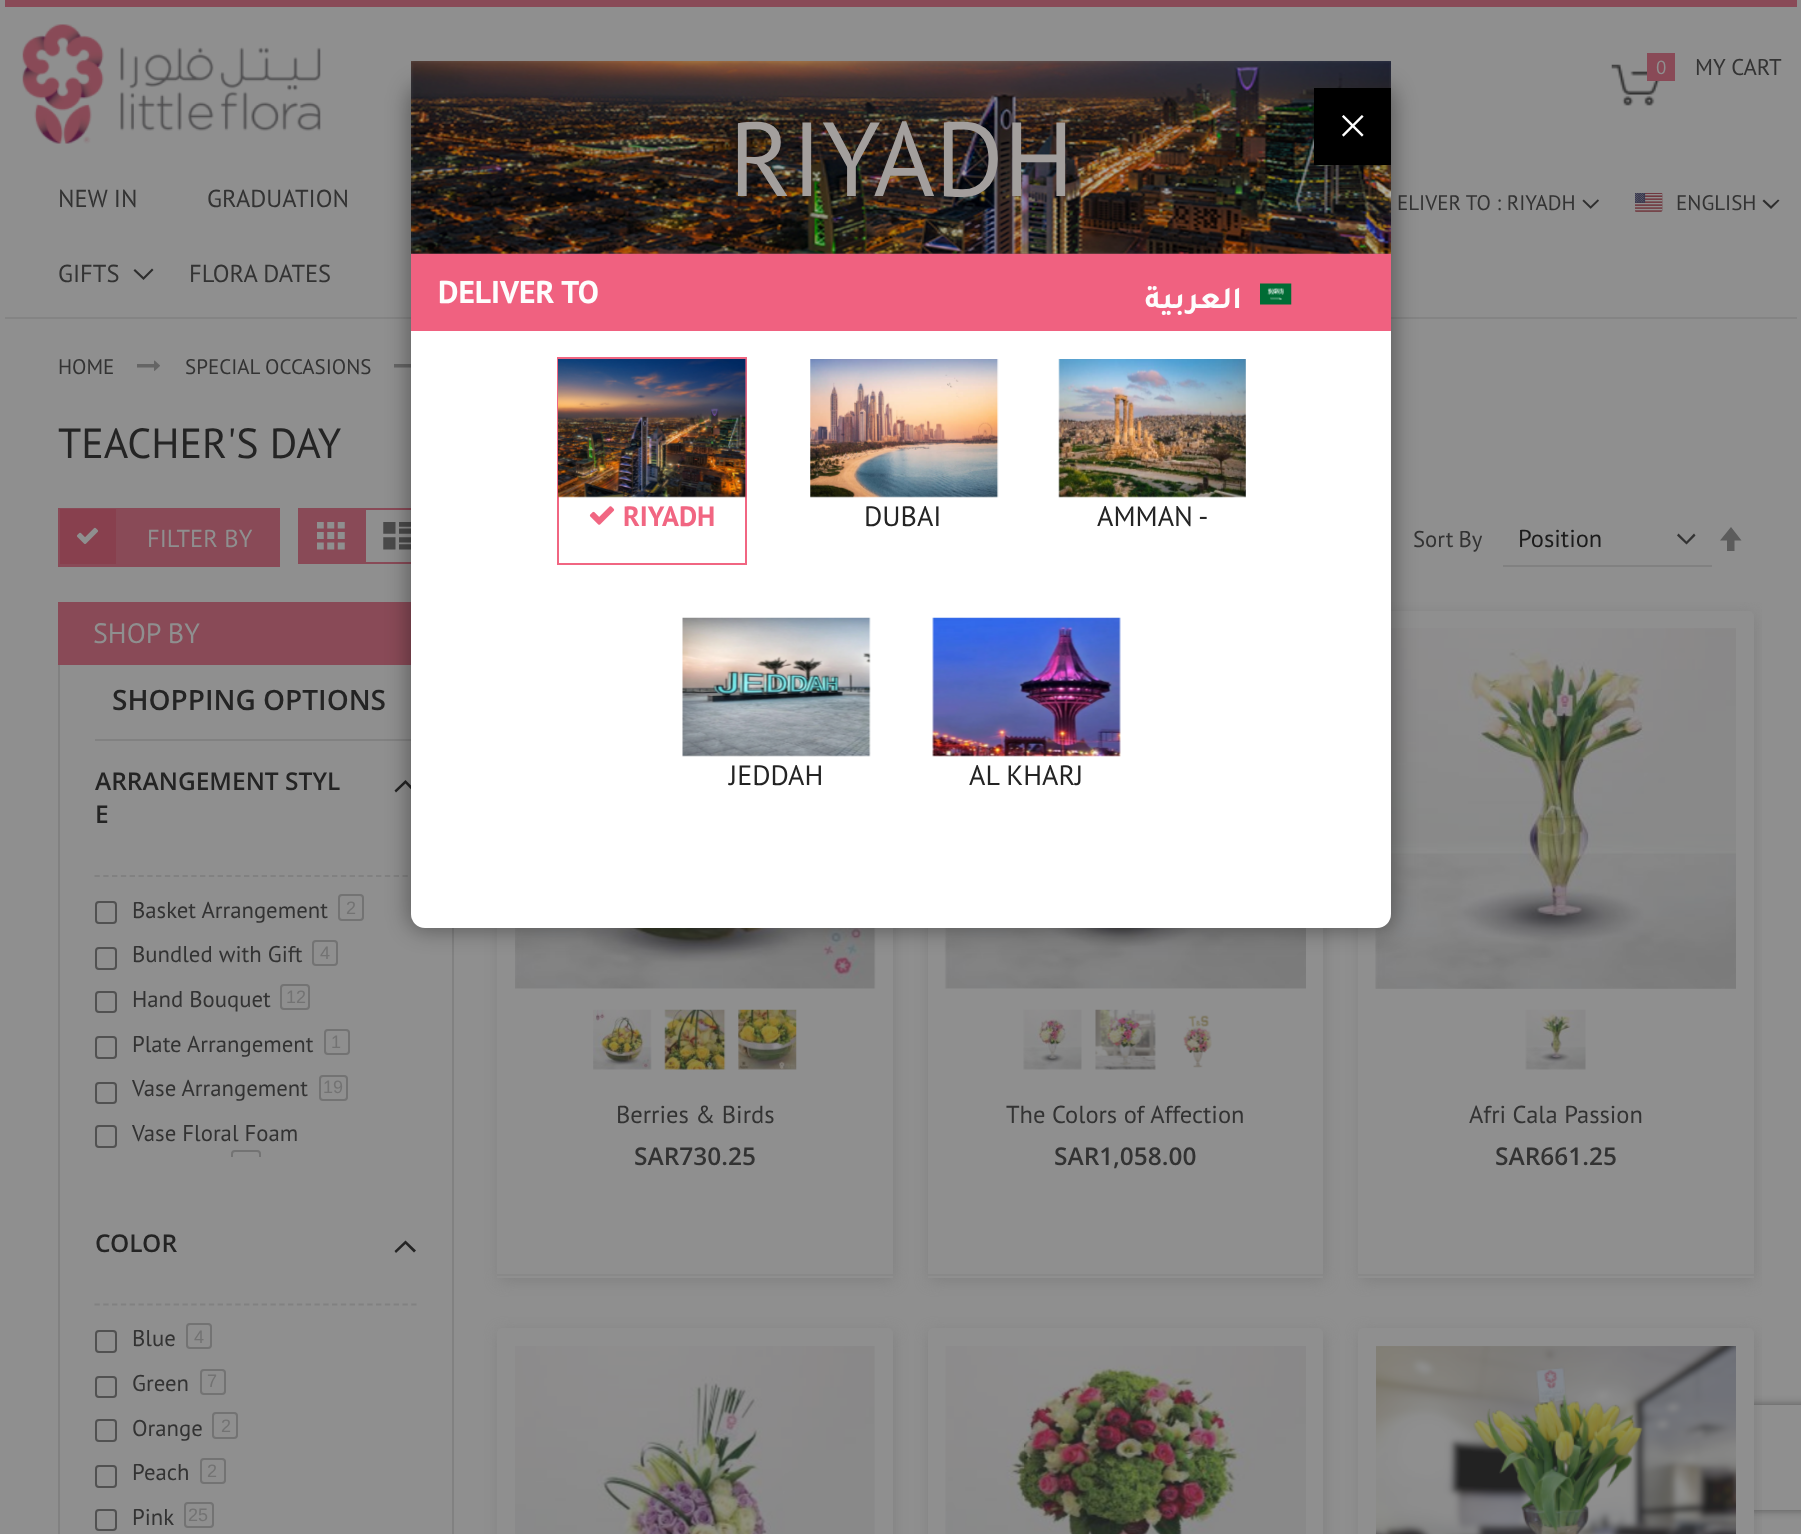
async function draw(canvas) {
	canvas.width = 1801;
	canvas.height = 1534;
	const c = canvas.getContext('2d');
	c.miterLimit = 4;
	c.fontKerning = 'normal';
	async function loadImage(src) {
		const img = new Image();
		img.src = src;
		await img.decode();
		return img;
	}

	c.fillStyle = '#8f8f8f';
	c.fillRect(0, 0, 1801, 1534);
	c.fillStyle = '#894a57';
	c.fillRect(5, 0, 1792, 7);
	c.drawImage(await loadImage('img1.png'), 22, 24, 299, 120);
	c.drawImage(await loadImage('img2.png'), 1611, 64, 49, 42);
	c.fillRect(1647, 53, 28, 28);
	c.font = '19px PT Sans';
	c.fillStyle = '#8f8f8f';
	c.fillText('0', 1656, 74);
	c.font = '22.75px PT Sans';
	c.fillStyle = '#333';
	c.fillText('MY CART', 1695, 75);
	c.fillStyle = '#848484';
	c.fillRect(5, 317, 1792, 2);
	c.font = '24.5px PT Sans';
	c.fillStyle = '#333';
	for (const [text, x, y] of [
		['NEW IN', 58, 207],
		['GRADUATION', 207, 207],
		['GIFTS', 58, 282],
	]) {
		c.fillText(text, x, y);
	}
	c.fillStyle = '#2e2e2e';
	c.beginPath();
	c.moveTo(143.5, 277);
	c.lineTo(135, 269);
	c.lineTo(133.5, 270.5);
	c.lineTo(143.5, 280);
	c.lineTo(153.5, 270);
	c.lineTo(152, 268.5);
	c.closePath();
	c.fill();
	c.fillStyle = '#333';
	c.fillText('FLORA DATES', 189, 282);
	c.font = '21px PT Sans';
	c.fillText('ELIVER TO : RIYADH', 1397, 210);
	c.drawImage(await loadImage('img3.png'), 1582, 199, 17, 10);
	c.drawImage(await loadImage('img4.png'), 1635, 193, 28, 19);
	c.fillText('ENGLISH', 1676, 210);
	c.fillStyle = '#2e2e2e';
	c.beginPath();
	c.moveTo(1771, 206);
	c.lineTo(1764, 199.5);
	c.lineTo(1762.5, 201);
	c.lineTo(1771, 209);
	c.lineTo(1779.5, 200.5);
	c.lineTo(1778, 199.5);
	c.closePath();
	c.fill();
	c.fillStyle = '#333';
	c.fillText('HOME', 58, 374);
	c.drawImage(await loadImage('img5.png'), 137, 360, 23, 11);
	c.fillText('SPECIAL OCCASIONS', 185, 374);
	c.drawImage(await loadImage('img6.png'), 394, 364, 17, 4);
	c.font = '42px PT Sans';
	c.fillStyle = '#242424';
	c.fillText('TEACHER\'S DAY', 58, 458);
	c.fillStyle = '#894a57';
	c.fillRect(58, 508, 222, 59);
	c.fillStyle = '#88404e';
	c.fillRect(60, 509, 56, 55);
	c.drawImage(await loadImage('img7.png'), 76, 527, 23, 17);
	c.font = '24.5px PT Sans';
	c.fillStyle = '#8f8f8f';
	c.fillText('FILTER BY', 147, 547);
	c.fillStyle = '#894a57';
	c.fillRect(298, 508, 66, 56);
	c.drawImage(await loadImage('img8.png'), 317, 522, 28, 28);
	c.strokeStyle = '#894a57';
	c.lineWidth = 2;
	c.strokeRect(365, 509, 65, 54);
	c.drawImage(await loadImage('img9.png'), 383, 522, 28, 28);
	c.wordSpacing = '-1px';
	c.font = '22.75px PT Sans';
	c.fillStyle = '#333';
	c.fillText('Sort By', 1413, 547);
	c.beginPath();
	c.moveTo(1686.5, 544.5);
	c.lineTo(1695.5, 535.5);
	c.lineTo(1694, 533.5);
	c.lineTo(1686.5, 541.5);
	c.lineTo(1678.5, 533.5);
	c.lineTo(1677, 535.5);
	c.closePath();
	c.fill('evenodd');
	c.fillStyle = '#818181';
	c.fillRect(1503, 565, 209, 2);
	c.wordSpacing = '0px';
	c.font = '24.5px PT Sans';
	c.fillStyle = '#1c1c1c';
	c.fillText('Position', 1518, 547);
	c.fillStyle = '#5c5c5c';
	c.beginPath();
	c.moveTo(1731, 527);
	c.lineTo(1720, 540.5);
	c.lineTo(1727, 540.5);
	c.lineTo(1727, 551);
	c.lineTo(1734.5, 551);
	c.lineTo(1734.5, 540.5);
	c.lineTo(1741.5, 540.5);
	c.closePath();
	c.fill();
	c.fillStyle = '#894a57';
	c.fillRect(58, 602, 353, 63);
	c.font = '28px PT Sans';
	c.fillStyle = '#8f8f8f';
	c.fillText('SHOP BY', 93, 643);
	for (const [x, y, w, h, color] of [
		[452, 928, 2, 606, '#818181'],
		[58, 665, 2, 869, '#818181'],
		[95, 739, 322, 2, '#818181'],
	]) {
		c.fillStyle = color;
		c.fillRect(x, y, w, h);
	}
	c.font = '600 28px Open Sans';
	c.fillStyle = '#242424';
	c.fillText('SHOPPING OPTIONS', 112, 710);
	c.font = '600 24.5px Open Sans';
	c.fillText('ARRANGEMENT STYL', 95, 790);
	c.beginPath();
	c.moveTo(405.5, 783.5);
	c.lineTo(414, 792.5);
	c.lineTo(416, 790.5);
	c.lineTo(405.5, 780);
	c.lineTo(394.5, 790.5);
	c.lineTo(396, 792.5);
	c.closePath();
	c.fill();
	c.fillText('E', 95, 823);
	c.beginPath();
	c.moveTo(94.5, 876);
	c.lineTo(416.5, 876);
	c.strokeStyle = '#818181';
	c.lineWidth = 1.8;
	c.setLineDash([5.25, 3.55]);
	c.stroke();
	c.beginPath();
	c.roundRect(96, 902, 20, 21, 3);
	c.strokeStyle = '#515151';
	c.lineWidth = 2;
	c.setLineDash([]);
	c.stroke();
	c.font = '22.75px PT Sans';
	c.fillStyle = '#333';
	c.fillText('Basket Arrangement', 132, 918);
	c.beginPath();
	c.roundRect(339, 895, 24, 25, 3);
	c.strokeStyle = '#737373';
	c.stroke();
	c.font = '18px Liberation Sans';
	c.fillStyle = '#737373';
	c.fillText('2', 346, 914);
	c.beginPath();
	c.roundRect(96, 948, 20, 21, 3);
	c.strokeStyle = '#515151';
	c.stroke();
	c.font = '22.75px PT Sans';
	c.fillStyle = '#333';
	c.fillText('Bundled with Gift', 132, 962);
	c.beginPath();
	c.roundRect(313, 941, 24, 24, 3);
	c.strokeStyle = '#737373';
	c.stroke();
	c.font = '18px Liberation Sans';
	c.fillStyle = '#737373';
	c.fillText('4', 320, 959);
	c.beginPath();
	c.roundRect(96, 992, 20, 20, 3);
	c.strokeStyle = '#515151';
	c.stroke();
	c.font = '22.75px PT Sans';
	c.fillStyle = '#333';
	c.fillText('Hand Bouquet', 132, 1007);
	c.beginPath();
	c.roundRect(281, 985, 28, 24, 3);
	c.strokeStyle = '#737373';
	c.stroke();
	c.font = '18px Liberation Sans';
	c.fillStyle = '#737373';
	c.fillText('12', 286, 1003);
	c.beginPath();
	c.roundRect(96, 1037, 20, 21, 3);
	c.strokeStyle = '#515151';
	c.stroke();
	c.font = '22.75px PT Sans';
	c.fillStyle = '#333';
	c.fillText('Plate Arrangement', 132, 1052);
	c.beginPath();
	c.roundRect(325, 1030, 24, 24, 3);
	c.strokeStyle = '#737373';
	c.stroke();
	c.font = '18px Liberation Sans';
	c.fillStyle = '#737373';
	c.fillText('1', 331, 1048);
	c.beginPath();
	c.roundRect(96, 1083, 20, 20, 3);
	c.strokeStyle = '#515151';
	c.stroke();
	c.font = '22.75px PT Sans';
	c.fillStyle = '#333';
	c.fillText('Vase Arrangement', 132, 1096);
	c.beginPath();
	c.roundRect(320, 1076, 27, 24, 3);
	c.strokeStyle = '#737373';
	c.stroke();
	c.font = '18px Liberation Sans';
	c.fillStyle = '#737373';
	c.fillText('19', 323, 1093);
	c.beginPath();
	c.roundRect(96, 1126, 20, 21, 3);
	c.strokeStyle = '#515151';
	c.stroke();
	c.font = '22.75px PT Sans';
	c.fillStyle = '#333';
	c.fillText('Vase Floral Foam', 132, 1141);
	c.save();
	c.beginPath();
	c.rect(95, 894, 322, 263);
	c.clip();
	c.beginPath();
	c.roundRect(232, 1151, 28, 24, 3);
	c.strokeStyle = '#737373';
	c.stroke();
	c.restore();
	c.font = '600 24.5px Open Sans';
	c.fillStyle = '#242424';
	c.fillText('COLOR', 95, 1252);
	c.beginPath();
	c.moveTo(405.5, 1244);
	c.lineTo(414, 1252.5);
	c.lineTo(416, 1250.5);
	c.lineTo(405.5, 1240.5);
	c.lineTo(394.5, 1251);
	c.lineTo(396, 1253);
	c.closePath();
	c.fill();
	c.beginPath();
	c.moveTo(94.5, 1304.5);
	c.lineTo(416.5, 1304.5);
	c.strokeStyle = '#818181';
	c.lineWidth = 1.8;
	c.setLineDash([5.25, 3.55]);
	c.stroke();
	c.beginPath();
	c.roundRect(96, 1331, 20, 21, 3);
	c.strokeStyle = '#515151';
	c.lineWidth = 2;
	c.setLineDash([]);
	c.stroke();
	c.font = '22.75px PT Sans';
	c.fillStyle = '#333';
	c.fillText('Blue', 132, 1346);
	c.beginPath();
	c.roundRect(187, 1324, 24, 24, 3);
	c.strokeStyle = '#737373';
	c.stroke();
	c.font = '18px Liberation Sans';
	c.fillStyle = '#737373';
	c.fillText('4', 194, 1343);
	c.beginPath();
	c.roundRect(96, 1377, 20, 20, 3);
	c.strokeStyle = '#515151';
	c.stroke();
	c.font = '22.75px PT Sans';
	c.fillStyle = '#333';
	c.fillText('Green', 132, 1391);
	c.beginPath();
	c.roundRect(201, 1370, 24, 24, 3);
	c.strokeStyle = '#737373';
	c.stroke();
	c.font = '18px Liberation Sans';
	c.fillStyle = '#737373';
	c.fillText('7', 207, 1387);
	c.beginPath();
	c.roundRect(96, 1420, 20, 21, 3);
	c.strokeStyle = '#515151';
	c.stroke();
	c.font = '22.75px PT Sans';
	c.fillStyle = '#333';
	c.fillText('Orange', 132, 1436);
	c.beginPath();
	c.roundRect(213, 1413, 24, 25, 3);
	c.strokeStyle = '#737373';
	c.stroke();
	c.font = '18px Liberation Sans';
	c.fillStyle = '#737373';
	c.fillText('2', 221, 1432);
	c.beginPath();
	c.roundRect(96, 1466, 20, 21, 3);
	c.strokeStyle = '#515151';
	c.stroke();
	c.font = '22.75px PT Sans';
	c.fillStyle = '#333';
	c.fillText('Peach', 132, 1480);
	c.beginPath();
	c.roundRect(201, 1459, 24, 24, 3);
	c.strokeStyle = '#737373';
	c.stroke();
	c.font = '18px Liberation Sans';
	c.fillStyle = '#737373';
	c.fillText('2', 207, 1477);
	c.beginPath();
	c.roundRect(96, 1510, 20, 20, 3);
	c.strokeStyle = '#515151';
	c.stroke();
	c.font = '22.75px PT Sans';
	c.fillStyle = '#333';
	c.fillText('Pink', 132, 1525);
	c.beginPath();
	c.roundRect(185, 1503, 28, 24, 3);
	c.strokeStyle = '#737373';
	c.stroke();
	c.font = '18px Liberation Sans';
	c.fillStyle = '#737373';
	c.fillText('25', 188, 1521);
	c.fillStyle = '#818181';
	c.filter = 'blur(7px)';
	c.beginPath();
	c.roundRect(499, 614, 395, 667, 5);
	c.fill();
	c.filter = 'none';
	c.fillStyle = '#8f8f8f';
	c.fillRect(497, 928, 396, 346);
	c.drawImage(await loadImage('img10.png'), 515, 928, 361, 61);
	c.drawImage(await loadImage('img11.png'), 593, 1009, 59, 61);
	c.drawImage(await loadImage('img12.png'), 664, 1009, 62, 61);
	c.drawImage(await loadImage('img13.png'), 738, 1009, 59, 61);
	c.font = '24.5px PT Sans';
	c.fillStyle = '#333';
	c.fillText('Berries & Birds', 616, 1123);
	c.font = '600 24.5px Open Sans';
	c.fillText('SAR730.25', 634, 1165);
	c.fillStyle = '#898989';
	c.fillRect(497, 1274, 396, 2);
	c.fillStyle = '#8f8f8f';
	c.fillRect(497, 1276, 396, 2);
	c.fillStyle = '#818181';
	c.filter = 'blur(7px)';
	c.beginPath();
	c.roundRect(929, 614, 396, 667, 5);
	c.fill();
	c.filter = 'none';
	c.fillStyle = '#8f8f8f';
	c.fillRect(928, 928, 395, 346);
	c.drawImage(await loadImage('img14.png'), 944, 928, 362, 61);
	c.drawImage(await loadImage('img15.png'), 1023, 1009, 59, 61);
	c.drawImage(await loadImage('img16.png'), 1095, 1009, 61, 61);
	c.drawImage(await loadImage('img17.png'), 1183, 1015, 29, 53);
	c.font = '24.5px PT Sans';
	c.fillStyle = '#333';
	c.fillText('The Colors of Affection', 1006, 1123);
	c.font = '600 24.5px Open Sans';
	c.fillText('SAR1,058.00', 1054, 1165);
	c.fillStyle = '#898989';
	c.fillRect(928, 1274, 395, 2);
	c.fillStyle = '#8f8f8f';
	c.fillRect(928, 1276, 395, 2);
	c.save();
	c.beginPath();
	c.rect(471, 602, 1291, 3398);
	c.clip();
	c.fillStyle = '#818181';
	c.filter = 'blur(7px)';
	c.beginPath();
	c.roundRect(1360, 614, 395, 667, 5);
	c.fill();
	c.filter = 'none';
	c.restore();
	c.beginPath();
	c.roundRect(1358, 611, 396, 667, 5);
	c.fill();
	c.drawImage(await loadImage('img18.png'), 1375, 628, 361, 361);
	c.drawImage(await loadImage('img19.png'), 1525, 1009, 61, 61);
	c.font = '24.5px PT Sans';
	c.fillStyle = '#333';
	c.fillText('Afri Cala Passion', 1469, 1123);
	c.font = '600 24.5px Open Sans';
	c.fillText('SAR661.25', 1495, 1165);
	c.fillStyle = '#898989';
	c.fillRect(1358, 1274, 396, 2);
	c.fillStyle = '#8f8f8f';
	c.fillRect(1358, 1276, 396, 2);
	c.fillStyle = '#818181';
	c.filter = 'blur(7px)';
	c.beginPath();
	c.roundRect(499, 1332, 395, 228, 5);
	c.fill();
	c.filter = 'none';
	c.fillStyle = '#8f8f8f';
	c.beginPath();
	c.roundRect(497, 1328, 396, 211, 5);
	c.fill();
	c.drawImage(await loadImage('img20.png'), 515, 1346, 360, 188);
	c.fillStyle = '#818181';
	c.filter = 'blur(7px)';
	c.beginPath();
	c.roundRect(929, 1332, 396, 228, 5);
	c.fill();
	c.filter = 'none';
	c.fillStyle = '#8f8f8f';
	c.beginPath();
	c.roundRect(928, 1328, 395, 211, 5);
	c.fill();
	c.drawImage(await loadImage('img21.png'), 945, 1346, 361, 188);
	c.save();
	c.beginPath();
	c.rect(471, 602, 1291, 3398);
	c.clip();
	c.fillStyle = '#818181';
	c.filter = 'blur(7px)';
	c.beginPath();
	c.roundRect(1360, 1332, 395, 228, 5);
	c.fill();
	c.filter = 'none';
	c.restore();
	c.save();
	c.beginPath();
	c.moveTo(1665, 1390);
	c.lineTo(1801, 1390);
	c.lineTo(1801, 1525);
	c.lineTo(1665, 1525);
	c.closePath();
	c.moveTo(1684, 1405);
	c.lineTo(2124, 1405);
	c.bezierCurveTo(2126, 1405, 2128, 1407, 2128, 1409);
	c.lineTo(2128, 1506);
	c.bezierCurveTo(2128, 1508, 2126, 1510, 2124, 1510);
	c.lineTo(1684, 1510);
	c.bezierCurveTo(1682, 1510, 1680, 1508, 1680, 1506);
	c.lineTo(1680, 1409);
	c.bezierCurveTo(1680, 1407, 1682, 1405, 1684, 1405);
	c.closePath();
	c.clip('evenodd');
	c.fillStyle = '#565656';
	c.filter = 'blur(4.5px)';
	c.beginPath();
	c.roundRect(1680, 1405, 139, 105, 4);
	c.fill();
	c.filter = 'none';
	c.restore();
	c.beginPath();
	c.roundRect(1358, 1328, 396, 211, 5);
	c.fill();
	c.drawImage(await loadImage('img22.png'), 1376, 1346, 360, 188);
	c.fillStyle = '#00000059';
	c.filter = 'blur(10.5px)';
	c.beginPath();
	c.roundRect(408, 84, 987, 847, 18);
	c.fill();
	c.filter = 'none';
	c.fillStyle = '#fff';
	c.beginPath();
	c.roundRect(411, 88, 980, 840, 14);
	c.fill();
	c.fillStyle = '#f16682';
	c.fillRect(411, 253, 980, 1);
	c.drawImage(await loadImage('img23.png'), 411, 61, 980, 193);
	c.fillStyle = '#0000004d';
	c.fillRect(411, 61, 980, 193);
	c.font = '105px PT Sans';
	c.fillStyle = '#a39f9d';
	c.fillText('RIYADH', 729, 196);
	c.fillStyle = '#f06180';
	c.fillRect(411, 254, 980, 77);
	c.font = 'bold 31.5px PT Sans';
	c.fillStyle = '#fdfdfd';
	c.fillText('DELIVER TO', 438, 303);
	c.direction = 'rtl';
	c.font = 'bold 31.5px Tajawal';
	c.fillText('العربية', 1242, 308);
	c.drawImage(await loadImage('img24.png'), 1260, 283, 32, 22);
	c.strokeStyle = '#f16682';
	c.strokeRect(558, 358, 188, 206);
	c.drawImage(await loadImage('img25.png'), 558, 359, 189, 139);
	c.drawImage(await loadImage('img26.png'), 589, 506, 26, 19);
	c.direction = 'ltr';
	c.font = 'bold 28px PT Sans';
	c.fillStyle = '#f16682';
	c.fillText('RIYADH', 623, 526);
	c.drawImage(await loadImage('img27.png'), 810, 359, 189, 139);
	c.font = '28px PT Sans';
	c.fillStyle = '#242424';
	c.fillText('DUBAI', 864, 526);
	c.drawImage(await loadImage('img28.png'), 1058, 359, 188, 139);
	c.fillText('AMMAN -', 1097, 526);
	c.drawImage(await loadImage('img29.png'), 682, 617, 189, 140);
	c.fillText('JEDDAH', 729, 785);
	c.drawImage(await loadImage('img30.png'), 932, 617, 189, 140);
	c.fillText('AL KHARJ', 969, 785);
	c.fillStyle = '#000';
	c.fillRect(1314, 88, 77, 77);
	c.drawImage(await loadImage('img31.png'), 1342, 115, 22, 22);
}

draw(document.querySelector('canvas'));
